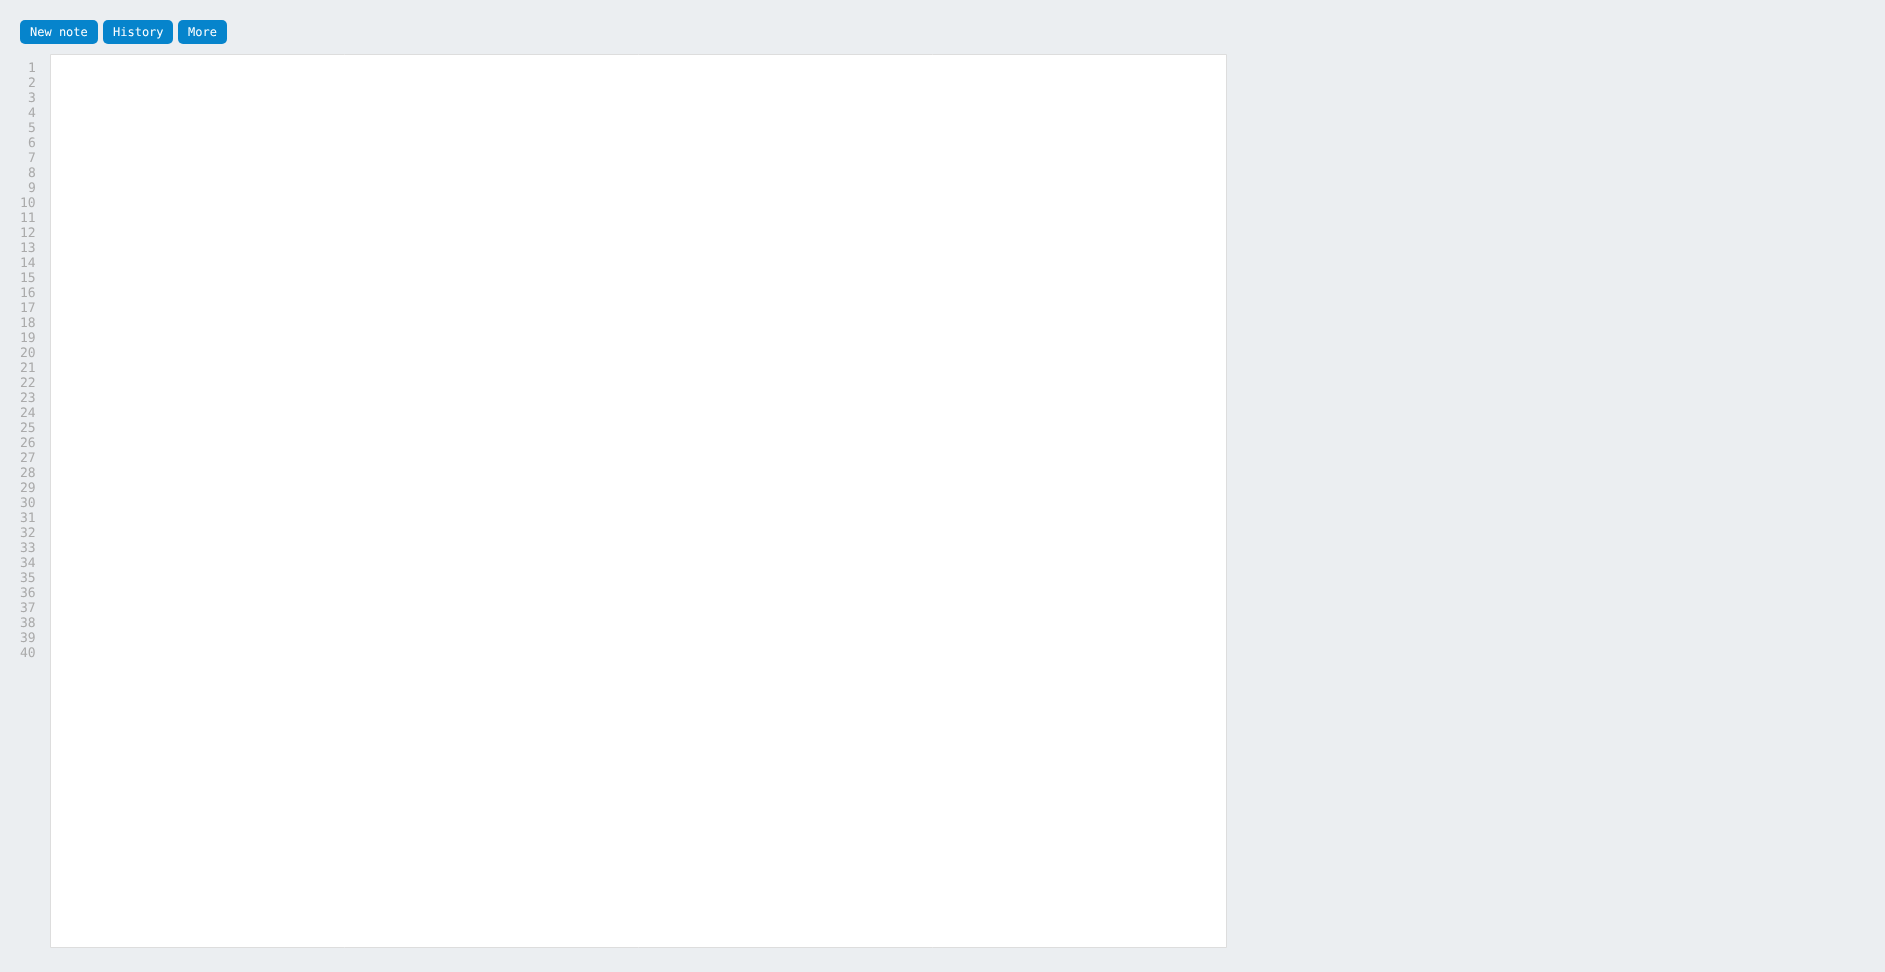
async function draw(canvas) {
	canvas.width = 1885;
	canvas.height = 972;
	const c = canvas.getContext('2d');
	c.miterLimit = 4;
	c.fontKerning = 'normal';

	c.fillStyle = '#ebeef1';
	c.fillRect(0, 0, 1885, 972);
	c.fillStyle = '#0684cc';
	c.beginPath();
	c.roundRect(20, 20, 78, 24, 5);
	c.fill();
	c.font = '12px DejaVu Sans Mono';
	c.fillStyle = '#fff';
	c.fillText('New note', 30, 36);
	c.fillStyle = '#0684cc';
	c.beginPath();
	c.roundRect(103, 20, 70, 24, 5);
	c.fill();
	c.fillStyle = '#fff';
	c.fillText('History', 113, 36);
	c.fillStyle = '#0684cc';
	c.beginPath();
	c.roundRect(178, 20, 49, 24, 5);
	c.fill();
	c.fillStyle = '#fff';
	c.fillText('More', 188, 36);
	c.font = '13px DejaVu Sans Mono';
	c.fillStyle = '#aaa';
	for (const [text, x, y] of [
		['1', 28, 72],
		['2', 28, 87],
		['3', 28, 102],
		['4', 28, 117],
		['5', 28, 132],
		['6', 28, 147],
		['7', 28, 162],
		['8', 28, 177],
		['9', 28, 192],
		['10', 20, 207],
		['11', 20, 222],
		['12', 20, 237],
		['13', 20, 252],
		['14', 20, 267],
		['15', 20, 282],
		['16', 20, 297],
		['17', 20, 312],
		['18', 20, 327],
		['19', 20, 342],
		['20', 20, 357],
		['21', 20, 372],
		['22', 20, 387],
		['23', 20, 402],
		['24', 20, 417],
		['25', 20, 432],
		['26', 20, 447],
		['27', 20, 462],
		['28', 20, 477],
		['29', 20, 492],
		['30', 20, 507],
		['31', 20, 522],
		['32', 20, 537],
		['33', 20, 552],
		['34', 20, 567],
		['35', 20, 582],
		['36', 20, 597],
		['37', 20, 612],
		['38', 20, 627],
		['39', 20, 642],
		['40', 20, 657],
	]) {
		c.fillText(text, x, y);
	}
	c.fillStyle = '#fff';
	c.beginPath();
	c.rect(50.5, 54.5, 1176, 893);
	c.fill();
	c.strokeStyle = '#ddd';
	c.stroke();
}

draw(document.querySelector('canvas'));
